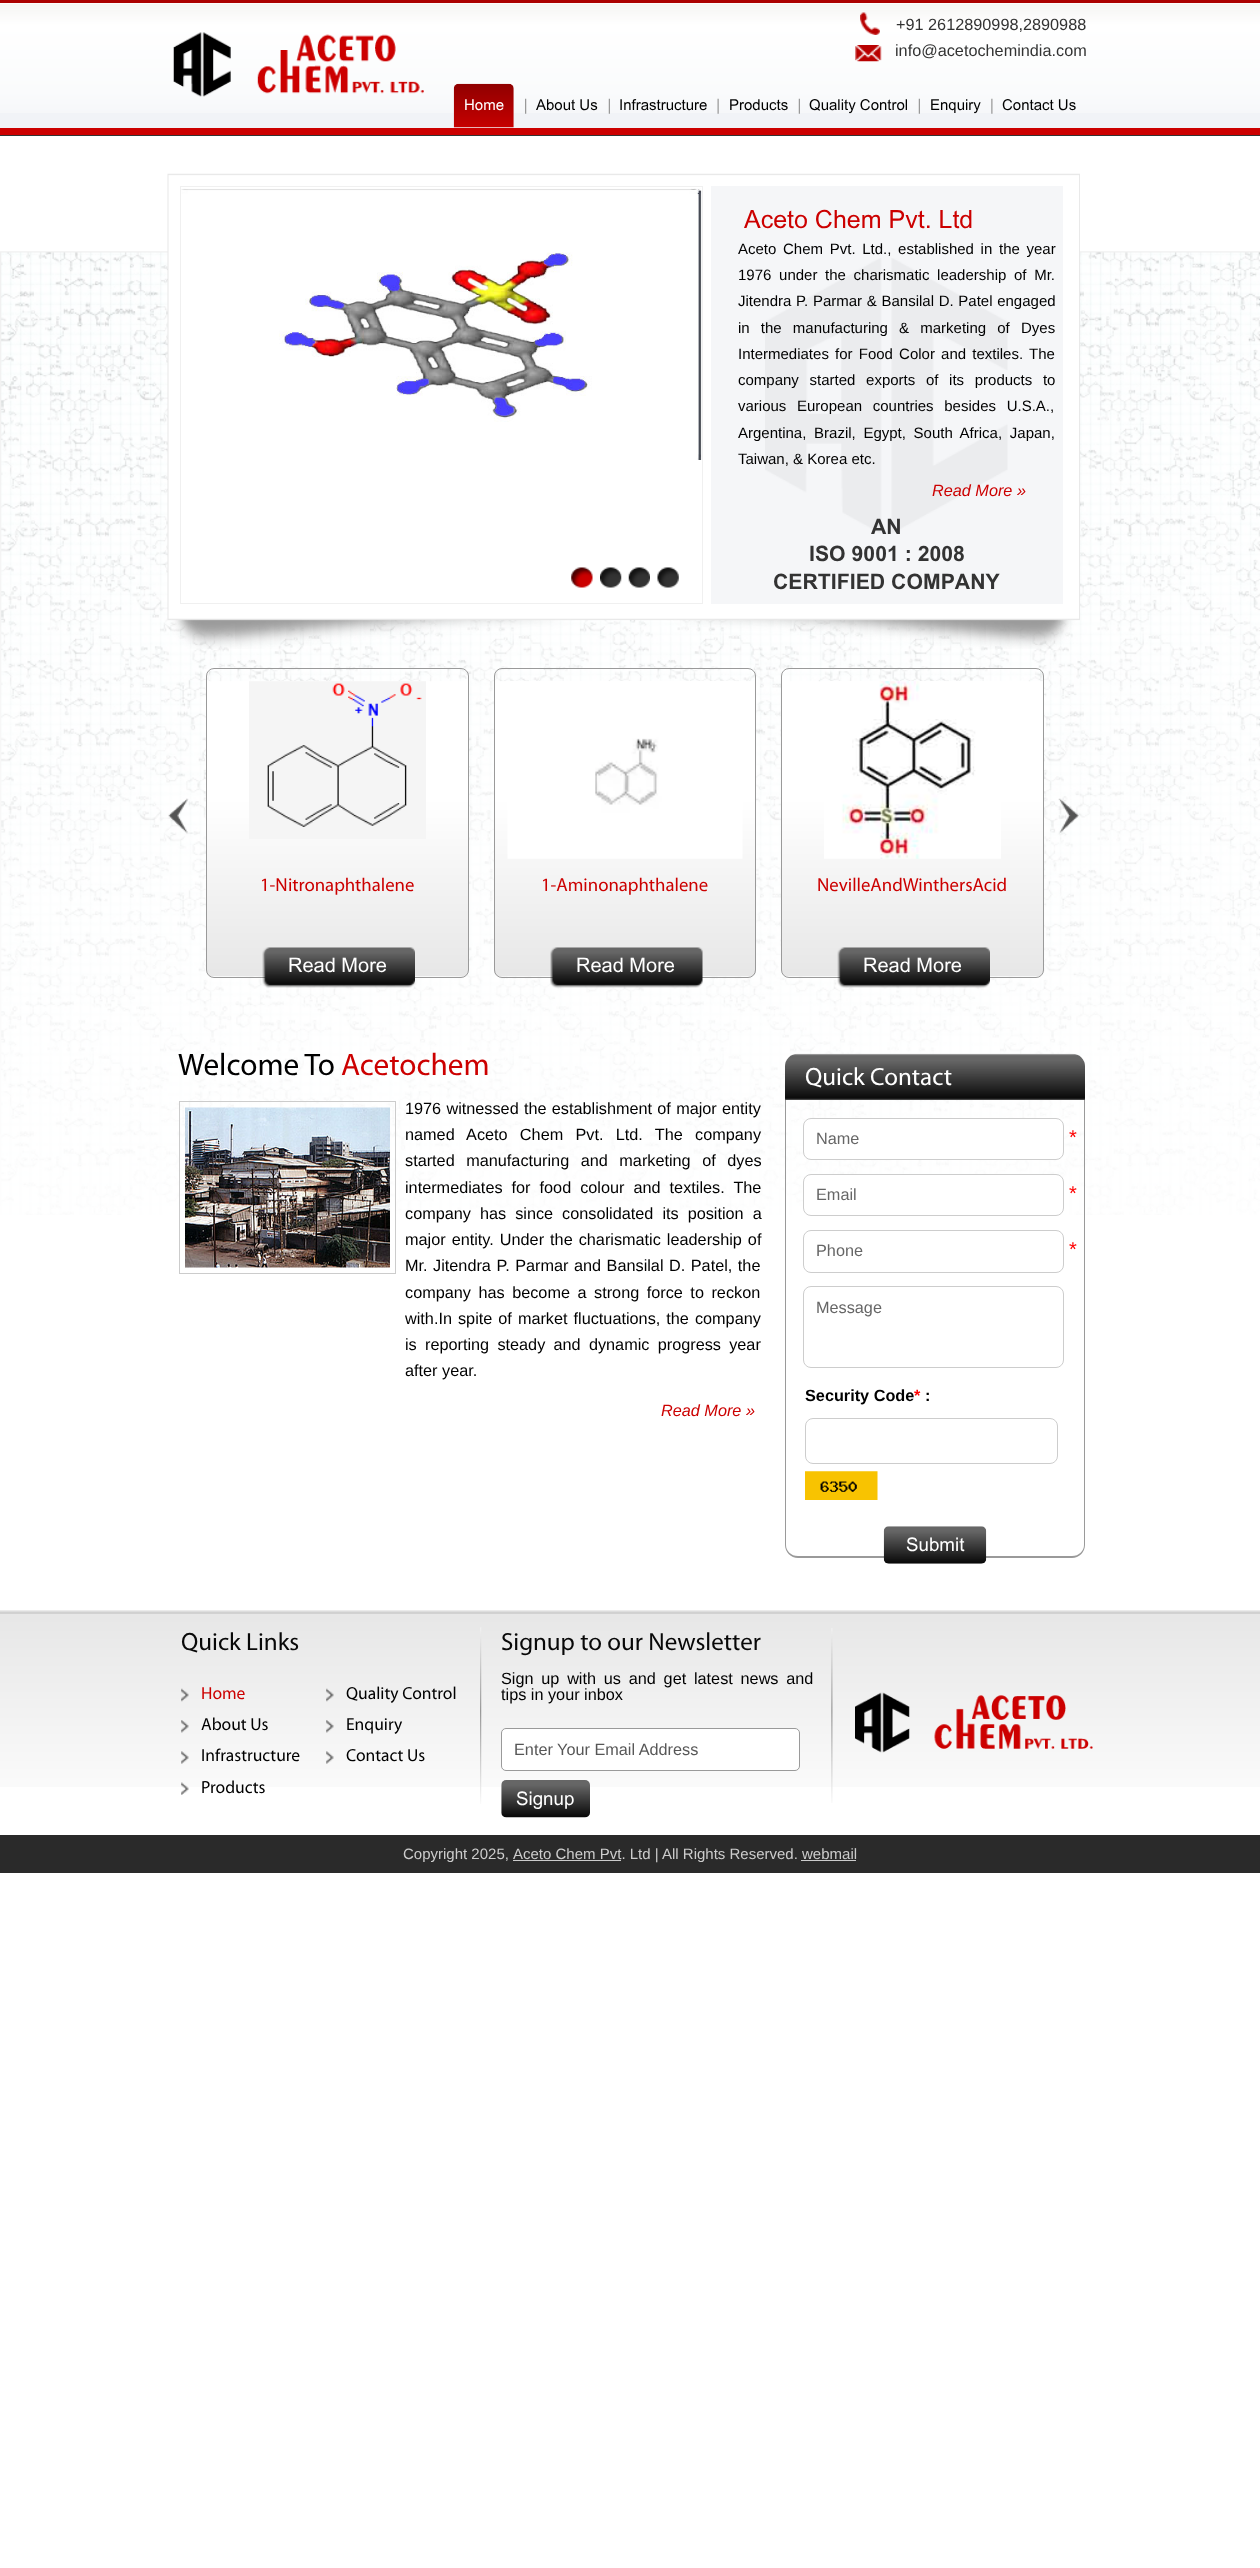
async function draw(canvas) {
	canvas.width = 1260;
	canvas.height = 2568;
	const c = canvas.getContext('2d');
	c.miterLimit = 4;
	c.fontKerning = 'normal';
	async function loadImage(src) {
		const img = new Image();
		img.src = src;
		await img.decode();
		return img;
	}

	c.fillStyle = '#fff';
	c.fillRect(0, 0, 1260, 2568);
	c.fillStyle = '#f1f3f7';
	c.fillRect(0, 113, 1260, 15);
	c.drawImage(await loadImage('img1.png'), 0, 3, 1260, 110);
	c.fillStyle = '#ab0000';
	c.fillRect(0, 0, 1260, 3);
	c.fillStyle = '#c00';
	c.fillRect(0, 128, 1260, 7);
	c.drawImage(await loadImage('img2.png'), 173, 32, 251, 65);
	c.drawImage(await loadImage('img3.png'), 860, 12, 20, 23);
	c.font = '16.25px Liberation Sans';
	c.fillStyle = '#333';
	c.fillText('+91 2612890998,2890988', 896, 30);
	c.drawImage(await loadImage('img4.png'), 855, 45, 27, 17);
	c.fillText('info@acetochemindia.com', 895, 56);
	c.drawImage(await loadImage('img5.png'), 525, 98, 2, 16);
	c.drawImage(await loadImage('img6.png'), 453, 83, 61, 45);
	c.font = '15px Arial';
	c.fillStyle = '#fff';
	c.fillText('Home', 464, 110);
	c.drawImage(await loadImage('img7.png'), 608, 98, 2, 16);
	c.fillStyle = '#000';
	c.fillText('About Us', 536, 110);
	c.drawImage(await loadImage('img8.png'), 717, 98, 2, 16);
	c.fillText('Infrastructure', 619, 110);
	c.drawImage(await loadImage('img7.png'), 798, 98, 2, 16);
	c.fillText('Products', 729, 110);
	c.drawImage(await loadImage('img7.png'), 918, 98, 2, 16);
	c.fillText('Quality Control', 809, 110);
	c.drawImage(await loadImage('img9.png'), 991, 98, 2, 16);
	c.fillText('Enquiry', 930, 110);
	c.fillText('Contact Us', 1002, 110);
	c.drawImage(await loadImage('img10.png'), 0, 251, 1260, 964);
	c.fillStyle = '#333';
	c.fillRect(0, 135, 1260, 1);
	c.drawImage(await loadImage('img11.png'), 167, 173, 913, 476);
	c.strokeStyle = '#f0f0f0';
	c.strokeRect(180.5, 186.5, 522, 417);
	c.drawImage(await loadImage('img12.png'), 181, 188, 521, 272);
	c.drawImage(await loadImage('img13.png'), 571, 567, 22, 21);
	c.drawImage(await loadImage('img14.png'), 600, 567, 22, 21);
	c.drawImage(await loadImage('img15.png'), 628, 567, 22, 21);
	c.drawImage(await loadImage('img16.png'), 657, 567, 22, 21);
	c.fillStyle = '#f5f6f8';
	c.fillRect(711, 186, 352, 418);
	c.drawImage(await loadImage('img17.png'), 765, 258, 243, 276);
	c.font = '25px Arial';
	c.fillStyle = '#c00';
	c.fillText('Aceto Chem Pvt. Ltd', 744, 228);
	c.wordSpacing = '2.5px';
	c.font = '15px Liberation Sans';
	c.fillStyle = '#000';
	c.fillText('Aceto Chem Pvt. Ltd., established in the year', 738, 254);
	c.wordSpacing = '3.5px';
	c.fillText('1976 under the charismatic leadership of Mr.', 738, 280);
	c.wordSpacing = '0.5px';
	c.fillText('Jitendra P. Parmar & Bansilal D. Patel engaged', 738, 306);
	c.wordSpacing = '7px';
	c.fillText('in the manufacturing & marketing of Dyes', 738, 333);
	c.wordSpacing = '2px';
	c.fillText('Intermediates for Food Color and textiles. The', 738, 359);
	c.wordSpacing = '6.5px';
	c.fillText('company started exports of its products to', 738, 385);
	c.fillText('various European countries besides U.S.A.,', 738, 411);
	c.wordSpacing = '3.5px';
	c.fillText('Argentina, Brazil, Egypt, South Africa, Japan,', 738, 438);
	c.wordSpacing = '0px';
	c.fillText('Taiwan, & Korea etc.', 738, 464);
	c.font = 'italic 16.25px Liberation Sans';
	c.fillStyle = '#c00';
	c.fillText('Read More »', 932, 496);
	c.font = 'bold 21.25px Arial';
	c.fillStyle = '#333';
	for (const [text, x, y] of [
		['AN', 871, 534],
		['ISO 9001 : 2008', 809, 561],
		['CERTIFIED COMPANY', 773, 589],
	]) {
		c.fillText(text, x, y);
	}
	c.drawImage(await loadImage('img18.png'), 168, 798, 21, 36);
	c.drawImage(await loadImage('img19.png'), 1058, 798, 21, 36);
	c.drawImage(await loadImage('img20.png'), 206, 681, 263, 296);
	c.beginPath();
	c.roundRect(206.5, 668.5, 262, 309, 7.5);
	c.strokeStyle = '#9a9a9a';
	c.stroke();
	c.drawImage(await loadImage('img21.png'), 249, 681, 177, 158);
	c.font = '18.75px Myriad';
	c.fillStyle = '#c00';
	c.fillText('1-Nitronaphthalene', 260, 891);
	c.drawImage(await loadImage('img22.png'), 262, 947, 153, 41);
	c.font = '20px Arial';
	c.fillStyle = '#fff';
	c.fillText('Read More', 288, 972);
	c.drawImage(await loadImage('img23.png'), 494, 681, 262, 296);
	c.beginPath();
	c.roundRect(494.5, 668.5, 261, 309, 7.5);
	c.stroke();
	c.drawImage(await loadImage('img24.png'), 507, 681, 236, 178);
	c.font = '18.75px Myriad';
	c.fillStyle = '#c00';
	c.fillText('1-Aminonaphthalene', 541, 891);
	c.drawImage(await loadImage('img25.png'), 550, 947, 153, 41);
	c.font = '20px Arial';
	c.fillStyle = '#fff';
	c.fillText('Read More', 576, 972);
	c.drawImage(await loadImage('img26.png'), 781, 681, 263, 296);
	c.beginPath();
	c.roundRect(781.5, 668.5, 262, 309, 7.5);
	c.stroke();
	c.drawImage(await loadImage('img27.png'), 824, 681, 177, 178);
	c.font = '18.75px Myriad';
	c.fillStyle = '#c00';
	c.fillText('NevilleAndWinthersAcid', 817, 891);
	c.drawImage(await loadImage('img28.png'), 837, 947, 153, 41);
	c.font = '20px Arial';
	c.fillStyle = '#fff';
	c.fillText('Read More', 863, 972);
	c.font = '31.25px Myriad';
	c.fillStyle = '#000';
	c.fillText('Welcome To', 178, 1075);
	c.fillStyle = '#c00';
	c.fillText('Acetochem', 341, 1075);
	c.strokeStyle = '#ccc';
	c.strokeRect(179.5, 1101.5, 216, 172);
	c.drawImage(await loadImage('img29.png'), 185, 1107, 205, 161);
	c.wordSpacing = '0.75px';
	c.font = '16.25px Liberation Sans';
	c.fillStyle = '#000';
	c.fillText('1976 witnessed the establishment of major entity', 405, 1114);
	c.wordSpacing = '7.75px';
	c.fillText('named Aceto Chem Pvt. Ltd. The company', 405, 1140);
	c.wordSpacing = '7px';
	c.fillText('started manufacturing and marketing of dyes', 405, 1166);
	c.wordSpacing = '4.5px';
	c.fillText('intermediates for food colour and textiles. The', 405, 1193);
	c.fillText('company has since consolidated its position a', 405, 1219);
	c.wordSpacing = '1.5px';
	c.fillText('major entity. Under the charismatic leadership of', 405, 1245);
	c.wordSpacing = '1px';
	c.fillText('Mr. Jitendra P. Parmar and Bansilal D. Patel, the', 405, 1271);
	c.wordSpacing = '3px';
	c.fillText('company has become a strong force to reckon', 405, 1298);
	c.wordSpacing = '1.5px';
	c.fillText('with.In spite of market fluctuations, the company', 405, 1324);
	c.wordSpacing = '3.75px';
	c.fillText('is reporting steady and dynamic progress year', 405, 1350);
	c.wordSpacing = '0px';
	c.fillText('after year.', 405, 1376);
	c.font = 'italic 16.25px Liberation Sans';
	c.fillStyle = '#c00';
	c.fillText('Read More »', 661, 1416);
	c.drawImage(await loadImage('img30.png'), 785, 1053, 300, 47);
	c.font = '25px Myriad';
	c.fillStyle = '#fff';
	c.fillText('Quick Contact', 805, 1085);
	c.fillStyle = '#9a9a9a';
	c.beginPath();
	c.moveTo(785, 1100);
	c.lineTo(1085, 1100);
	c.lineTo(1085, 1545);
	c.bezierCurveTo(1085, 1552, 1079, 1558, 1072, 1558);
	c.lineTo(798, 1558);
	c.bezierCurveTo(791, 1558, 785, 1552, 785, 1545);
	c.closePath();
	c.moveTo(786, 1100);
	c.lineTo(1084, 1100);
	c.lineTo(1084, 1545);
	c.bezierCurveTo(1084, 1551, 1079, 1556, 1072, 1556);
	c.lineTo(798, 1556);
	c.bezierCurveTo(791, 1556, 786, 1551, 786, 1545);
	c.closePath();
	c.fill('evenodd');
	c.fillStyle = '#fff';
	c.beginPath();
	c.roundRect(803.5, 1118.5, 260, 41, 7.5);
	c.fill();
	c.strokeStyle = '#cdcdcd';
	c.stroke();
	c.font = '16.25px Liberation Sans';
	c.fillStyle = '#666';
	c.fillText('Name', 816, 1144);
	c.font = '20px Liberation Sans';
	c.fillStyle = '#f00';
	c.fillText('*', 1069, 1144);
	c.fillStyle = '#fff';
	c.beginPath();
	c.roundRect(803.5, 1174.5, 260, 41, 7.5);
	c.fill();
	c.stroke();
	c.font = '16.25px Liberation Sans';
	c.fillStyle = '#666';
	c.fillText('Email', 816, 1200);
	c.font = '20px Liberation Sans';
	c.fillStyle = '#f00';
	c.fillText('*', 1069, 1200);
	c.beginPath();
	c.roundRect(803.5, 1230.5, 260, 42, 7.5);
	c.stroke();
	c.font = '16.25px Liberation Sans';
	c.fillStyle = '#666';
	c.fillText('Phone', 816, 1256);
	c.font = '20px Liberation Sans';
	c.fillStyle = '#f00';
	c.fillText('*', 1069, 1256);
	c.beginPath();
	c.roundRect(803.5, 1286.5, 260, 81, 7.5);
	c.stroke();
	c.font = '16.25px Liberation Sans';
	c.fillStyle = '#666';
	c.fillText('Message', 816, 1313);
	c.font = 'bold 16.25px Liberation Sans';
	c.fillStyle = '#000';
	c.fillText('Security Code', 805, 1401);
	c.fillStyle = '#f00';
	c.fillText('*', 914, 1401);
	c.fillStyle = '#000';
	c.fillText(':', 925, 1401);
	c.beginPath();
	c.roundRect(805.5, 1418.5, 252, 45, 7.5);
	c.stroke();
	c.drawImage(await loadImage('img31.png'), 805, 1471, 73, 29);
	c.drawImage(await loadImage('img32.png'), 883, 1526, 104, 38);
	c.font = '18.75px Arial';
	c.fillStyle = '#fff';
	c.fillText('Submit', 906, 1551);
	c.drawImage(await loadImage('img33.png'), 0, 1610, 1260, 177);
	c.drawImage(await loadImage('img34.png'), 480, 1627, 2, 177);
	c.font = '25px Myriad';
	c.fillStyle = '#080808';
	c.fillText('Quick Links', 181, 1650);
	c.drawImage(await loadImage('img35.png'), 181, 1688, 8, 14);
	c.font = '17.5px Myriad';
	c.fillStyle = '#c00';
	c.fillText('Home', 201, 1699);
	c.drawImage(await loadImage('img35.png'), 326, 1688, 8, 14);
	c.fillStyle = '#000';
	c.fillText('Quality Control', 346, 1699);
	c.drawImage(await loadImage('img36.png'), 181, 1720, 8, 13);
	c.fillText('About Us', 201, 1730);
	c.drawImage(await loadImage('img36.png'), 326, 1720, 8, 13);
	c.fillText('Enquiry', 346, 1730);
	c.drawImage(await loadImage('img37.png'), 181, 1751, 8, 13);
	c.fillText('Infrastructure', 201, 1761);
	c.drawImage(await loadImage('img37.png'), 326, 1751, 8, 13);
	c.fillText('Contact Us', 346, 1761);
	c.drawImage(await loadImage('img38.png'), 181, 1782, 8, 13);
	c.fillText('Products', 201, 1793);
	c.drawImage(await loadImage('img39.png'), 831, 1628, 2, 175);
	c.font = '25px Myriad';
	c.fillStyle = '#080808';
	c.fillText('Signup to our Newsletter', 501, 1650);
	c.wordSpacing = '3.25px';
	c.font = '16.25px Liberation Sans';
	c.fillStyle = '#000';
	c.fillText('Sign up with us and get latest news and', 501, 1684);
	c.wordSpacing = '0px';
	c.fillText('tips in your inbox', 501, 1700);
	c.fillStyle = '#fff';
	c.beginPath();
	c.roundRect(501.5, 1728.5, 298, 42, 4.5);
	c.fill();
	c.strokeStyle = '#9a9a9a';
	c.stroke();
	c.fillStyle = '#575757';
	c.fillText('Enter Your Email Address', 514, 1755);
	c.drawImage(await loadImage('img40.png'), 501, 1780, 89, 38);
	c.font = '18.75px Arial';
	c.fillStyle = '#fff';
	c.fillText('Signup', 516, 1805);
	c.drawImage(await loadImage('img41.png'), 855, 1692, 238, 61);
	c.fillStyle = '#2a2a2a';
	c.fillRect(0, 1835, 1260, 38);
	c.font = '15px Liberation Sans';
	c.fillStyle = '#ccc';
	c.fillText('Copyright 2025,', 403, 1859);
	c.fillRect(513, 1860, 108, 1);
	c.fillText('Aceto Chem Pvt. Ltd | All Rights Reserved. webmail', 513, 1859);
	c.fillRect(801, 1860, 55, 1);
}

draw(document.querySelector('canvas'));
